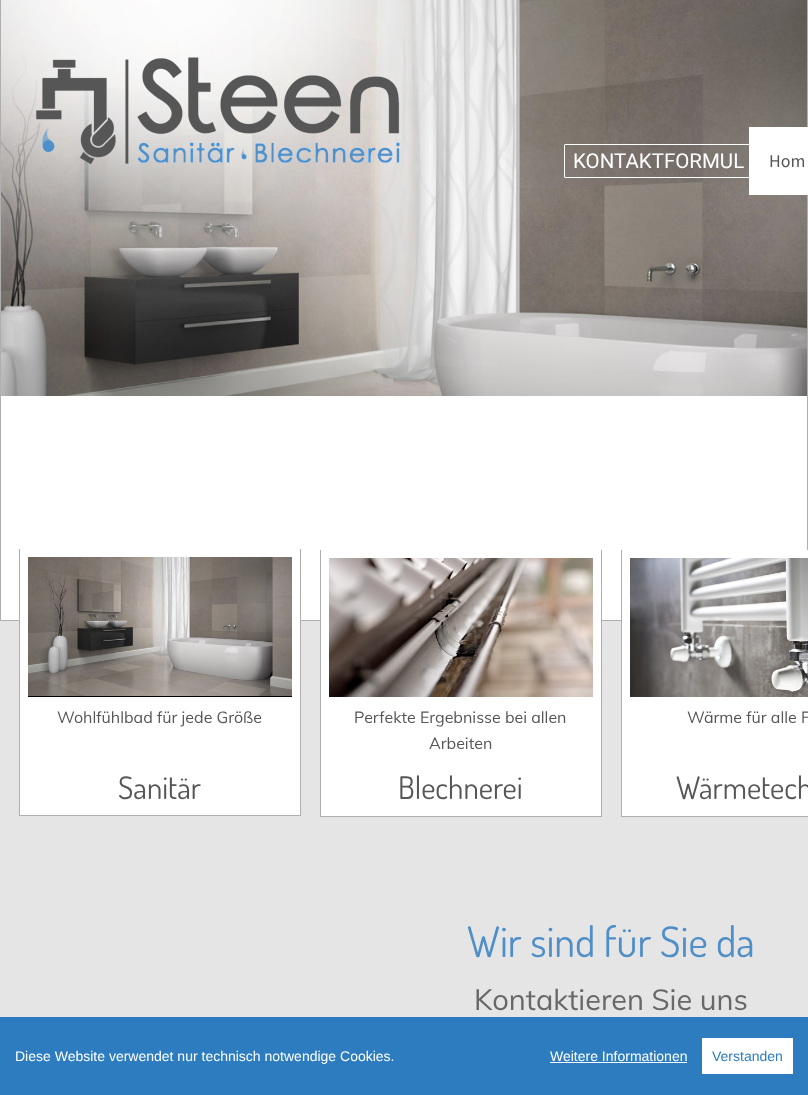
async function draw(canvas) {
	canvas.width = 808;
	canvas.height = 1095;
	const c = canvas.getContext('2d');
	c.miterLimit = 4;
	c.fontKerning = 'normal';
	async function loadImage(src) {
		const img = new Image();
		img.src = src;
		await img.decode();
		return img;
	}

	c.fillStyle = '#e5e5e5';
	c.fillRect(0, 0, 808, 1095);
	c.fillStyle = '#fff';
	c.fillRect(1, 396, 806, 224);
	c.strokeStyle = '#b0afaf';
	c.strokeRect(0.5, -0.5, 807, 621);
	c.drawImage(await loadImage('img1.png'), 1, 0, 806, 396);
	c.beginPath();
	c.roundRect(564.5, 144.5, 213, 33, 0.5);
	c.strokeStyle = '#fff';
	c.stroke();
	c.font = '20.5px Roboto';
	c.fillText('KONTAKTFORMUL', 573, 168);
	c.drawImage(await loadImage('img2.png'), 36, 57, 364, 108);
	c.fillRect(749, 127, 59, 68);
	c.font = '18px Source Sans Pro';
	c.fillStyle = '#565656';
	c.fillText('Hom', 769, 167);
	for (const [x, y, w, h, color] of [
		[20, 620, 280, 195, '#fff'],
		[300, 549, 1, 267, '#b0afaf'],
		[19, 815, 282, 1, '#b0afaf'],
		[19, 549, 1, 267, '#b0afaf'],
	]) {
		c.fillStyle = color;
		c.fillRect(x, y, w, h);
	}
	c.drawImage(await loadImage('img3.png'), 28, 557, 264, 139);
	c.fillStyle = '#000';
	c.fillRect(28, 696, 264, 1);
	c.font = '16px Muli';
	c.fillStyle = '#565656';
	c.fillText('Wohlfühlbad für jede Größe', 57, 723);
	c.font = '31px Dosis';
	c.fillText('Sanitär', 118, 799);
	for (const [x, y, w, h, color] of [
		[321, 620, 280, 196, '#fff'],
		[601, 550, 1, 267, '#b0afaf'],
		[320, 816, 282, 1, '#b0afaf'],
		[320, 550, 1, 267, '#b0afaf'],
	]) {
		c.fillStyle = color;
		c.fillRect(x, y, w, h);
	}
	c.drawImage(await loadImage('img4.png'), 329, 558, 264, 139);
	c.font = '16px Muli';
	c.fillStyle = '#565656';
	c.fillText('Perfekte Ergebnisse bei allen', 354, 723);
	c.fillText('Arbeiten', 429, 749);
	c.font = '31px Dosis';
	c.fillText('Blechnerei', 398, 799);
	for (const [x, y, w, h, color] of [
		[622, 550, 186, 266, '#fff'],
		[621, 816, 187, 1, '#b0afaf'],
		[621, 550, 1, 267, '#b0afaf'],
	]) {
		c.fillStyle = color;
		c.fillRect(x, y, w, h);
	}
	c.drawImage(await loadImage('img5.png'), 630, 558, 178, 139);
	c.font = '16px Muli';
	c.fillStyle = '#565656';
	c.fillText('Wärme für alle F', 687, 723);
	c.font = '31px Dosis';
	c.fillText('Wärmetech', 676, 799);
	c.font = '42px Dosis';
	c.fillStyle = '#508ec7';
	c.fillText('Wir sind für Sie da', 467, 957);
	c.font = '29px Muli';
	c.fillStyle = '#686868';
	c.fillText('Kontaktieren Sie uns', 474, 1010);
	c.fillStyle = '#2c7cbf';
	c.fillRect(0, 1017, 808, 78);
	c.font = '14px Liberation Sans';
	c.fillStyle = '#fff';
	c.fillText('Diese Website verwendet nur technisch notwendige Cookies.', 15, 1061);
	c.fillText('Weitere Informationen', 550, 1061);
	c.fillRect(550, 1062, 137, 1);
	c.fillRect(702, 1038, 91, 36);
	c.fillStyle = '#2c7cbf';
	c.fillText('Verstanden', 712, 1061);
}

draw(document.querySelector('canvas'));
